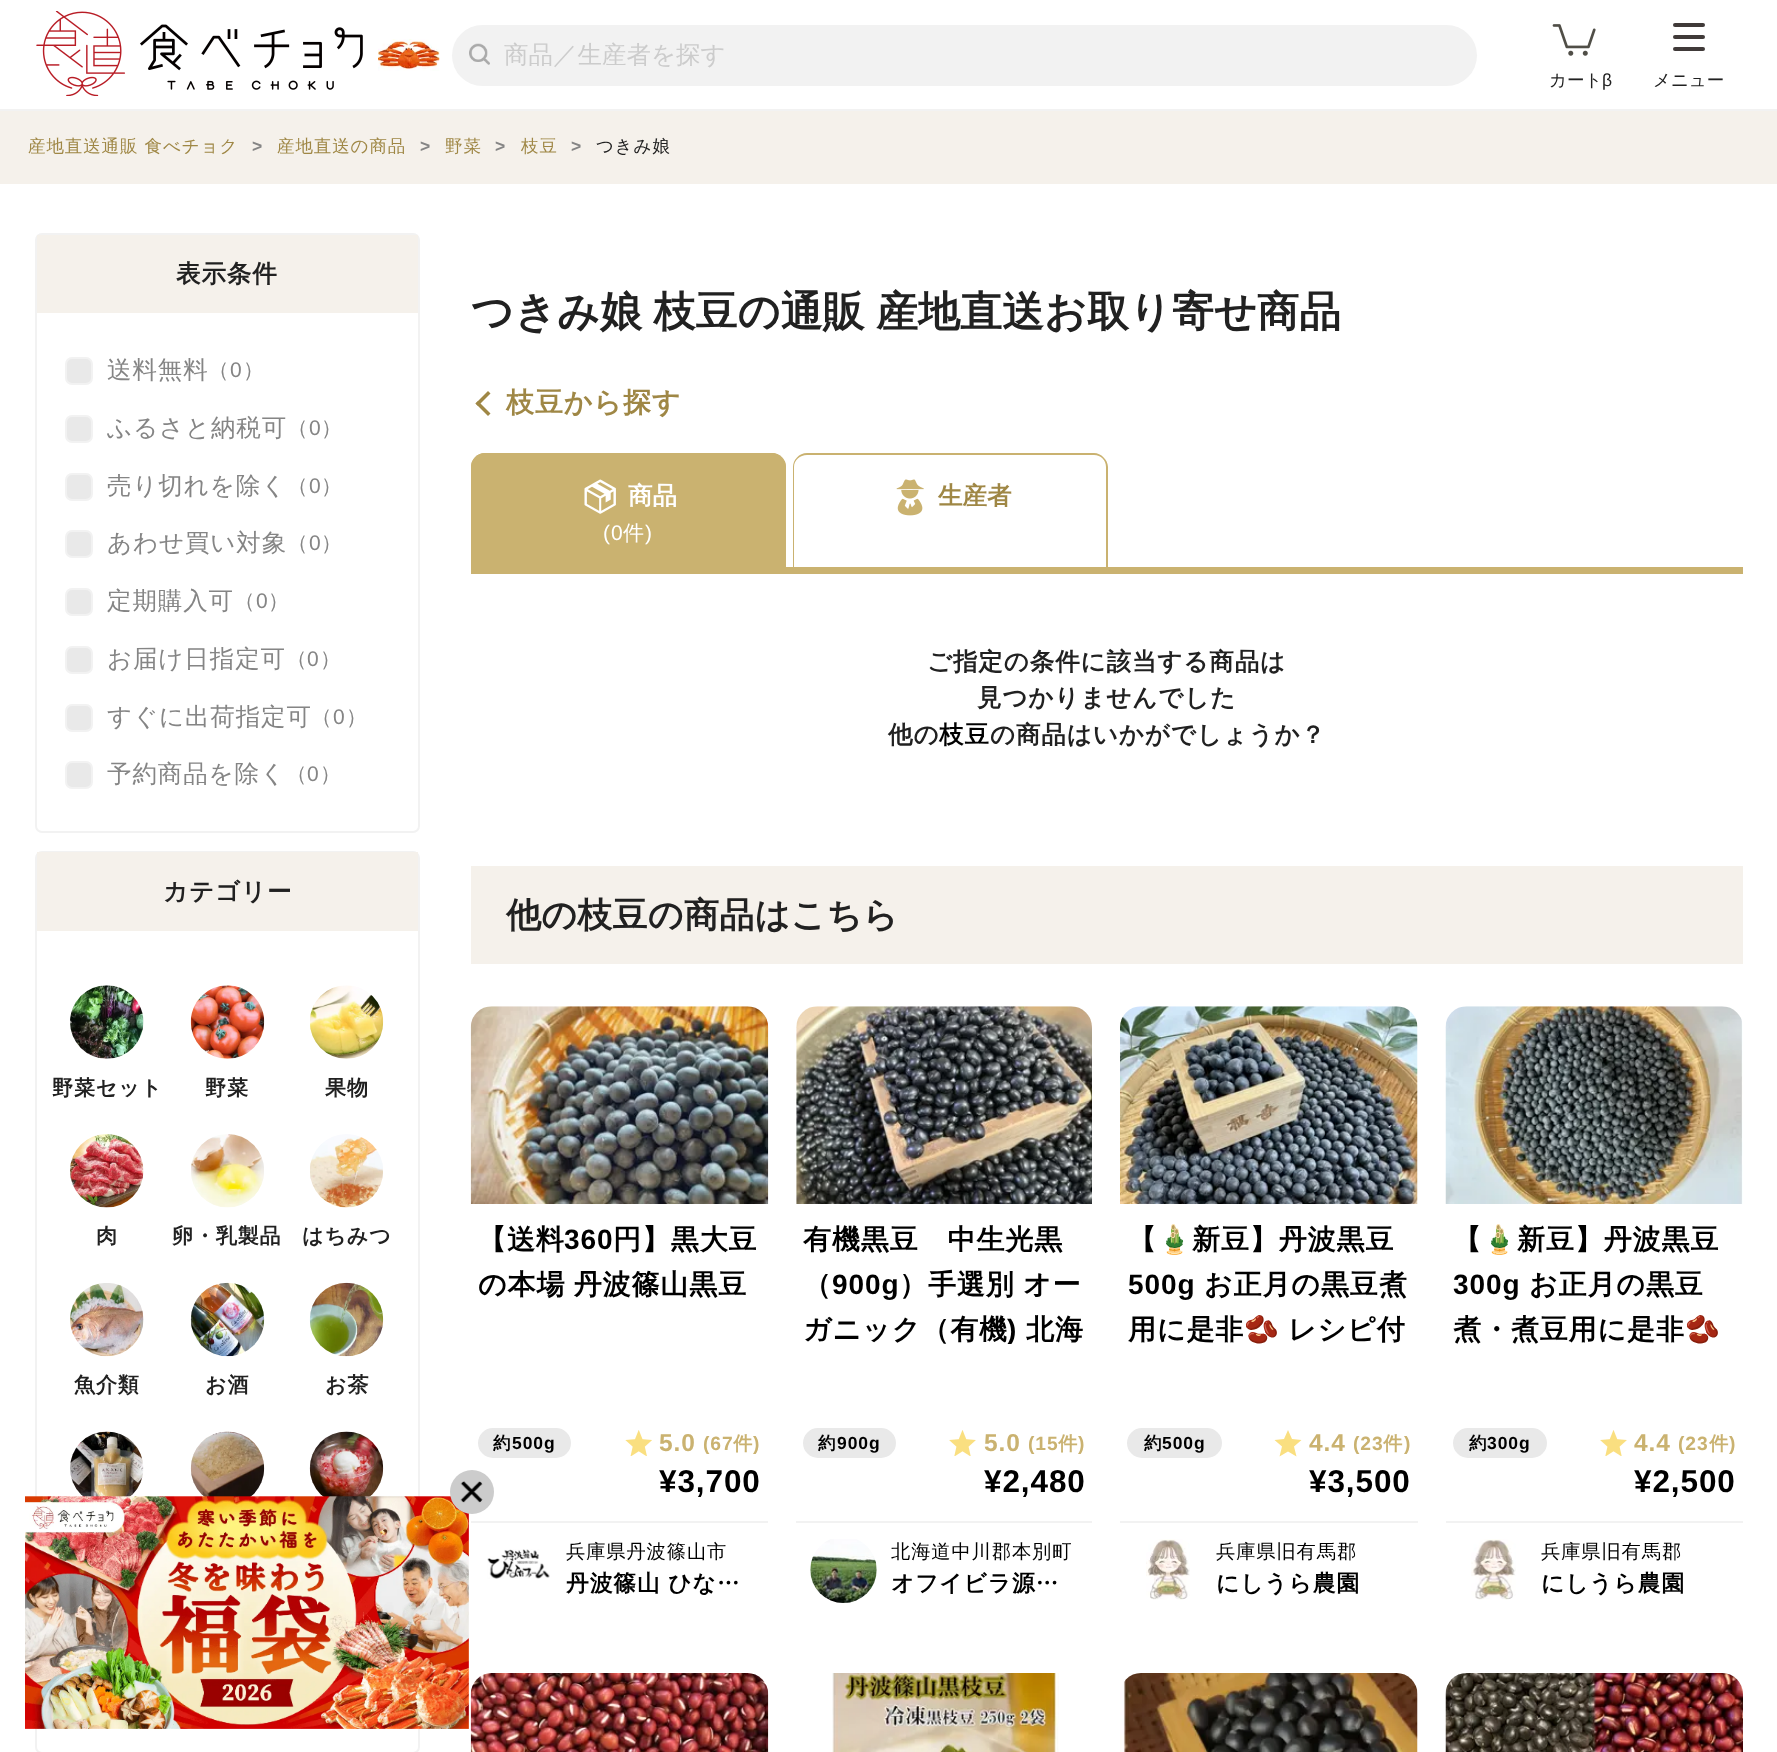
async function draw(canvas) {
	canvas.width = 1777;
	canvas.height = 1752;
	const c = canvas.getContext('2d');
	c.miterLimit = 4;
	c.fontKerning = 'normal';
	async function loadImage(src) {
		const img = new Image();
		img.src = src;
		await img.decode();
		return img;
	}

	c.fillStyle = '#fff';
	c.fillRect(0, 0, 1777, 1752);
	c.fillStyle = '#f2f2f2';
	c.fillRect(0, 109, 1777, 2);
	c.drawImage(await loadImage('img1.png'), 36, 11, 327, 85);
	c.drawImage(await loadImage('img2.png'), 378, 39, 62, 32);
	c.beginPath();
	c.roundRect(452, 25, 1025, 61, 30.5);
	c.fill();
	c.drawImage(await loadImage('img3.png'), 469, 43, 21, 22);
	c.font = '500 24.5px WenQuanYi Zen Hei';
	c.fillStyle = '#ccc';
	c.fillText('商品／生産者を探す', 504, 63);
	c.drawImage(await loadImage('img4.png'), 1552, 24, 44, 32);
	c.font = '500 17.5px WenQuanYi Zen Hei';
	c.fillStyle = '#212121';
	c.fillText('カート', 1549, 86);
	c.font = '17.5px Liberation Sans';
	c.fillText('β', 1602, 86);
	c.fillStyle = '#403a39';
	c.beginPath();
	c.roundRect(1673, 23, 32, 4, 2);
	c.fill();
	c.beginPath();
	c.roundRect(1673, 35, 32, 4, 2);
	c.fill();
	c.beginPath();
	c.roundRect(1673, 47, 32, 4, 2);
	c.fill();
	c.font = '500 17.5px WenQuanYi Zen Hei';
	c.fillStyle = '#212121';
	c.fillText('メニュー', 1653, 86);
	c.fillStyle = '#f5f1eb';
	c.fillRect(0, 111, 1777, 73);
	c.letterSpacing = '0.9px';
	c.fillStyle = '#9f8745';
	c.fillText('産地直送通販 食べチョク', 28, 152);
	c.font = 'bold 17.5px Liberation Sans';
	c.fillStyle = '#858585';
	c.fillText('>', 252, 152);
	c.font = '500 17.5px WenQuanYi Zen Hei';
	c.fillStyle = '#9f8745';
	c.fillText('産地直送の商品', 277, 152);
	c.font = 'bold 17.5px Liberation Sans';
	c.fillStyle = '#858585';
	c.fillText('>', 420, 152);
	c.font = '500 17.5px WenQuanYi Zen Hei';
	c.fillStyle = '#9f8745';
	c.fillText('野菜', 445, 152);
	c.font = 'bold 17.5px Liberation Sans';
	c.fillStyle = '#858585';
	c.fillText('>', 495, 152);
	c.font = '500 17.5px WenQuanYi Zen Hei';
	c.fillStyle = '#9f8745';
	c.fillText('枝豆', 521, 152);
	c.font = 'bold 17.5px Liberation Sans';
	c.fillStyle = '#858585';
	c.fillText('>', 571, 152);
	c.font = '500 17.5px WenQuanYi Zen Hei';
	c.fillStyle = '#212121';
	c.fillText('つきみ娘', 596, 152);
	c.beginPath();
	c.roundRect(36, 234, 383, 598, 6);
	c.strokeStyle = '#f2f2f2';
	c.lineWidth = 2;
	c.stroke();
	c.fillStyle = '#f5f1eb';
	c.fillRect(37, 235, 381, 78);
	c.font = 'bold 24.5px WenQuanYi Zen Hei';
	c.fillStyle = '#212121';
	c.fillText('表示条件', 176, 282);
	c.fillStyle = '#e9e9e9';
	c.beginPath();
	c.roundRect(66, 358, 26, 26, 6);
	c.fill();
	c.stroke();
	c.font = '500 24.5px WenQuanYi Zen Hei';
	c.fillStyle = '#858585';
	c.fillText('送料無料', 107, 378);
	c.font = '500 21px WenQuanYi Zen Hei';
	c.fillText('（', 208, 377);
	c.font = '21px Liberation Sans';
	c.fillText('0', 230, 377);
	c.font = '500 21px WenQuanYi Zen Hei';
	c.fillText('）', 243, 377);
	c.fillStyle = '#e9e9e9';
	c.beginPath();
	c.roundRect(66, 416, 26, 26, 6);
	c.fill();
	c.stroke();
	c.font = '500 24.5px WenQuanYi Zen Hei';
	c.fillStyle = '#858585';
	c.fillText('ふるさと納税可', 107, 436);
	c.font = '500 21px WenQuanYi Zen Hei';
	c.fillText('（', 287, 435);
	c.font = '21px Liberation Sans';
	c.fillText('0', 309, 435);
	c.font = '500 21px WenQuanYi Zen Hei';
	c.fillText('）', 321, 435);
	c.fillStyle = '#e9e9e9';
	c.beginPath();
	c.roundRect(66, 474, 26, 26, 6);
	c.fill();
	c.stroke();
	c.font = '500 24.5px WenQuanYi Zen Hei';
	c.fillStyle = '#858585';
	c.fillText('売り切れを除く', 107, 494);
	c.font = '500 21px WenQuanYi Zen Hei';
	c.fillText('（', 287, 493);
	c.font = '21px Liberation Sans';
	c.fillText('0', 309, 493);
	c.font = '500 21px WenQuanYi Zen Hei';
	c.fillText('）', 321, 493);
	c.fillStyle = '#e9e9e9';
	c.beginPath();
	c.roundRect(66, 531, 26, 26, 6);
	c.fill();
	c.stroke();
	c.font = '500 24.5px WenQuanYi Zen Hei';
	c.fillStyle = '#858585';
	c.fillText('あわせ買い対象', 107, 551);
	c.font = '500 21px WenQuanYi Zen Hei';
	c.fillText('（', 287, 550);
	c.font = '21px Liberation Sans';
	c.fillText('0', 309, 550);
	c.font = '500 21px WenQuanYi Zen Hei';
	c.fillText('）', 321, 550);
	c.fillStyle = '#e9e9e9';
	c.beginPath();
	c.roundRect(66, 589, 26, 26, 6);
	c.fill();
	c.stroke();
	c.font = '500 24.5px WenQuanYi Zen Hei';
	c.fillStyle = '#858585';
	c.fillText('定期購入可', 107, 609);
	c.font = '500 21px WenQuanYi Zen Hei';
	c.fillText('（', 234, 608);
	c.font = '21px Liberation Sans';
	c.fillText('0', 256, 608);
	c.font = '500 21px WenQuanYi Zen Hei';
	c.fillText('）', 268, 608);
	c.fillStyle = '#e9e9e9';
	c.beginPath();
	c.roundRect(66, 647, 26, 26, 6);
	c.fill();
	c.stroke();
	c.font = '500 24.5px WenQuanYi Zen Hei';
	c.fillStyle = '#858585';
	c.fillText('お届け日指定可', 107, 667);
	c.font = '500 21px WenQuanYi Zen Hei';
	c.fillText('（', 286, 666);
	c.font = '21px Liberation Sans';
	c.fillText('0', 307, 666);
	c.font = '500 21px WenQuanYi Zen Hei';
	c.fillText('）', 320, 666);
	c.fillStyle = '#e9e9e9';
	c.beginPath();
	c.roundRect(66, 705, 26, 26, 6);
	c.fill();
	c.stroke();
	c.font = '500 24.5px WenQuanYi Zen Hei';
	c.fillStyle = '#858585';
	c.fillText('すぐに出荷指定可', 107, 725);
	c.font = '500 21px WenQuanYi Zen Hei';
	c.fillText('（', 311, 724);
	c.font = '21px Liberation Sans';
	c.fillText('0', 333, 724);
	c.font = '500 21px WenQuanYi Zen Hei';
	c.fillText('）', 346, 724);
	c.fillStyle = '#e9e9e9';
	c.beginPath();
	c.roundRect(66, 762, 26, 26, 6);
	c.fill();
	c.stroke();
	c.font = '500 24.5px WenQuanYi Zen Hei';
	c.fillStyle = '#858585';
	c.fillText('予約商品を除く', 107, 782);
	c.font = '500 21px WenQuanYi Zen Hei';
	c.fillText('（', 286, 781);
	c.font = '21px Liberation Sans';
	c.fillText('0', 307, 781);
	c.font = '500 21px WenQuanYi Zen Hei';
	c.fillText('）', 320, 781);
	c.beginPath();
	c.roundRect(36, 852, 383, 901, 6);
	c.stroke();
	c.fillStyle = '#f5f1eb';
	c.fillRect(37, 852, 381, 79);
	c.font = 'bold 24.5px WenQuanYi Zen Hei';
	c.fillStyle = '#212121';
	c.fillText('カテゴリー', 163, 900);
	c.drawImage(await loadImage('img5.png'), 70, 985, 74, 74);
	c.font = 'bold 21px WenQuanYi Zen Hei';
	c.fillText('野菜セット', 52, 1095);
	c.drawImage(await loadImage('img6.png'), 190, 985, 75, 74);
	c.fillText('野菜', 205, 1095);
	c.drawImage(await loadImage('img7.png'), 310, 985, 74, 74);
	c.fillText('果物', 325, 1095);
	c.drawImage(await loadImage('img8.png'), 70, 1134, 74, 74);
	c.fillText('肉', 96, 1243);
	c.drawImage(await loadImage('img9.png'), 191, 1134, 73, 74);
	c.fillText('卵・乳製品', 172, 1243);
	c.drawImage(await loadImage('img10.png'), 310, 1134, 73, 74);
	c.fillText('はちみつ', 302, 1243);
	c.drawImage(await loadImage('img11.png'), 70, 1283, 74, 74);
	c.fillText('魚介類', 74, 1392);
	c.drawImage(await loadImage('img12.png'), 190, 1282, 75, 75);
	c.fillText('お酒', 205, 1392);
	c.drawImage(await loadImage('img13.png'), 309, 1282, 75, 75);
	c.fillText('お茶', 325, 1392);
	c.drawImage(await loadImage('img14.png'), 70, 1431, 74, 66);
	c.drawImage(await loadImage('img15.png'), 190, 1431, 75, 66);
	c.drawImage(await loadImage('img16.png'), 309, 1431, 75, 66);
	c.letterSpacing = '0px';
	c.wordSpacing = '-1px';
	c.font = 'bold 42px WenQuanYi Zen Hei';
	c.fillText('つきみ娘 枝豆の通販 産地直送お取り寄せ商品', 471, 326);
	c.fillStyle = '#9f8745';
	c.beginPath();
	c.moveTo(488, 416);
	c.lineTo(475.5, 403.5);
	c.lineTo(478, 401);
	c.lineTo(490.5, 413.5);
	c.closePath();
	c.fill();
	c.beginPath();
	c.moveTo(478, 406);
	c.lineTo(475.5, 403.5);
	c.lineTo(488, 391);
	c.lineTo(490.5, 393.5);
	c.closePath();
	c.fill();
	c.letterSpacing = '0.9px';
	c.wordSpacing = '0px';
	c.font = 'bold 28px WenQuanYi Zen Hei';
	c.fillText('枝豆から探す', 506, 412);
	c.fillStyle = '#cab270';
	c.fillRect(471, 567, 1272, 7);
	c.beginPath();
	c.roundRect(471, 453, 315, 114, [14, 14, 0, 0]);
	c.fill();
	c.beginPath();
	c.moveTo(485, 453);
	c.lineTo(772, 453);
	c.bezierCurveTo(779, 453, 786, 460, 786, 467);
	c.lineTo(786, 567);
	c.lineTo(471, 567);
	c.lineTo(471, 467);
	c.bezierCurveTo(471, 460, 477, 453, 485, 453);
	c.closePath();
	c.moveTo(485, 455);
	c.lineTo(772, 455);
	c.bezierCurveTo(779, 455, 784, 460, 784, 467);
	c.lineTo(784, 567);
	c.lineTo(472, 567);
	c.lineTo(472, 467);
	c.bezierCurveTo(472, 460, 478, 455, 485, 455);
	c.closePath();
	c.fill('evenodd');
	c.drawImage(await loadImage('img17.png'), 584, 479, 32, 35);
	c.letterSpacing = '0px';
	c.font = 'bold 24.5px WenQuanYi Zen Hei';
	c.fillStyle = '#fff';
	c.fillText('商品', 628, 504);
	c.letterSpacing = '1px';
	c.font = '21px Liberation Sans';
	c.fillText('(0', 603, 540);
	c.font = '500 21px WenQuanYi Zen Hei';
	c.fillText('件', 623, 540);
	c.font = '21px Liberation Sans';
	c.fillText(')', 645, 540);
	c.fillStyle = '#cab270';
	c.beginPath();
	c.moveTo(807, 453);
	c.lineTo(1094, 453);
	c.bezierCurveTo(1101, 453, 1108, 460, 1108, 467);
	c.lineTo(1108, 567);
	c.lineTo(793, 567);
	c.lineTo(793, 467);
	c.bezierCurveTo(793, 460, 799, 453, 807, 453);
	c.closePath();
	c.moveTo(807, 455);
	c.lineTo(1094, 455);
	c.bezierCurveTo(1101, 455, 1106, 460, 1106, 467);
	c.lineTo(1106, 567);
	c.lineTo(794, 567);
	c.lineTo(794, 467);
	c.bezierCurveTo(794, 460, 800, 455, 807, 455);
	c.closePath();
	c.fill('evenodd');
	c.drawImage(await loadImage('img18.png'), 896, 479, 28, 37);
	c.letterSpacing = '0px';
	c.font = 'bold 24.5px WenQuanYi Zen Hei';
	c.fillStyle = '#9f8745';
	c.fillText('生産者', 938, 504);
	c.letterSpacing = '0.9px';
	c.fillStyle = '#212121';
	for (const [text, x, y] of [
		['ご指定の条件に該当する商品は', 927, 670],
		['見つかりませんでした', 977, 706],
		['他の', 888, 743],
	]) {
		c.fillText(text, x, y);
	}
	c.fillStyle = '#000';
	c.fillText('枝豆', 939, 743);
	c.fillStyle = '#212121';
	c.fillText('の商品はいかがでしょうか？', 990, 743);
	c.fillStyle = '#f5f1eb';
	c.fillRect(471, 866, 1272, 98);
	c.letterSpacing = '0.25px';
	c.font = 'bold 35px WenQuanYi Zen Hei';
	c.fillStyle = '#212121';
	c.fillText('他の枝豆の商品はこちら', 506, 927);
	c.drawImage(await loadImage('img19.png'), 470, 1006, 299, 198);
	c.letterSpacing = '0.9px';
	c.font = 'bold 28px WenQuanYi Zen Hei';
	c.fillStyle = '#000';
	c.fillText('【送料', 478, 1249);
	c.font = 'bold 28px Liberation Sans';
	c.fillText('360', 564, 1249);
	c.font = 'bold 28px WenQuanYi Zen Hei';
	c.fillText('円】黒大豆', 613, 1249);
	c.wordSpacing = '-1px';
	c.fillText('の本場 丹波篠山黒豆', 478, 1294);
	c.fillStyle = '#e9e9e9';
	c.beginPath();
	c.roundRect(479, 1429, 91, 28, 14);
	c.fill();
	c.strokeStyle = '#e9e9e9';
	c.stroke();
	c.wordSpacing = '0px';
	c.font = 'bold 17.5px WenQuanYi Zen Hei';
	c.fillStyle = '#000';
	c.fillText('約', 493, 1449);
	c.font = 'bold 17.5px Liberation Sans';
	c.fillText('500g', 512, 1449);
	c.drawImage(await loadImage('img20.png'), 625, 1430, 27, 26);
	c.font = 'bold 24.5px Liberation Sans';
	c.fillStyle = '#cab270';
	c.fillText('5.0', 659, 1451);
	c.font = 'bold 19.25px Liberation Sans';
	c.fillText('(67', 703, 1450);
	c.font = 'bold 19.25px WenQuanYi Zen Hei';
	c.fillText('件', 733, 1450);
	c.font = 'bold 19.25px Liberation Sans';
	c.fillText(')', 753, 1450);
	c.font = 'bold 31.5px Liberation Sans';
	c.fillStyle = '#000';
	c.fillText('¥3,700', 659, 1492);
	c.fillStyle = '#f2f2f2';
	c.fillRect(471, 1521, 297, 2);
	c.drawImage(await loadImage('img21.png'), 487, 1549, 63, 30);
	c.font = '500 19.25px WenQuanYi Zen Hei';
	c.fillStyle = '#000';
	c.fillText('兵庫県丹波篠山市', 566, 1558);
	c.font = 'bold 22.75px WenQuanYi Zen Hei';
	c.fillText('丹波篠山 ひな…', 566, 1591);
	c.drawImage(await loadImage('img22.png'), 796, 1006, 296, 198);
	c.font = 'bold 28px WenQuanYi Zen Hei';
	c.fillText('有機黒豆　中生光黒', 803, 1249);
	c.fillText('（', 803, 1294);
	c.font = 'bold 28px Liberation Sans';
	c.fillText('900g', 832, 1294);
	c.font = 'bold 28px WenQuanYi Zen Hei';
	for (const [text, x, y] of [
		['）手選別', 899, 1294],
		['オー', 1023, 1294],
		['ガニック（有機', 803, 1339],
	]) {
		c.fillText(text, x, y);
	}
	c.save();
	c.beginPath();
	c.rect(803, 1218, 282, 126);
	c.clip();
	c.font = 'bold 28px Liberation Sans';
	c.fillText(')', 1007, 1339);
	c.restore();
	c.fillText('北海', 1026, 1339);
	c.fillStyle = '#e9e9e9';
	c.beginPath();
	c.roundRect(804, 1429, 91, 28, 14);
	c.fill();
	c.stroke();
	c.font = 'bold 17.5px WenQuanYi Zen Hei';
	c.fillStyle = '#000';
	c.fillText('約', 818, 1449);
	c.font = 'bold 17.5px Liberation Sans';
	c.fillText('900g', 837, 1449);
	c.drawImage(await loadImage('img23.png'), 949, 1430, 27, 26);
	c.font = 'bold 24.5px Liberation Sans';
	c.fillStyle = '#cab270';
	c.fillText('5.0', 984, 1451);
	c.font = 'bold 19.25px Liberation Sans';
	c.fillText('(15', 1028, 1450);
	c.font = 'bold 19.25px WenQuanYi Zen Hei';
	c.fillText('件', 1058, 1450);
	c.font = 'bold 19.25px Liberation Sans';
	c.fillText(')', 1078, 1450);
	c.font = 'bold 31.5px Liberation Sans';
	c.fillStyle = '#000';
	c.fillText('¥2,480', 984, 1492);
	c.fillStyle = '#f2f2f2';
	c.fillRect(796, 1521, 296, 2);
	c.drawImage(await loadImage('img24.png'), 810, 1539, 67, 64);
	c.font = '500 19.25px WenQuanYi Zen Hei';
	c.fillStyle = '#000';
	c.fillText('北海道中川郡本別町', 891, 1558);
	c.font = 'bold 22.75px WenQuanYi Zen Hei';
	c.fillText('オフイビラ源…', 891, 1591);
	c.drawImage(await loadImage('img25.png'), 1120, 1006, 298, 198);
	c.font = 'bold 28px WenQuanYi Zen Hei';
	c.fillText('【', 1128, 1249);
	c.font = 'bold 28px Noto Color Emoji';
	c.fillText('🎍', 1157, 1249);
	c.font = 'bold 28px WenQuanYi Zen Hei';
	c.fillText('新豆】丹波黒豆', 1192, 1249);
	c.font = 'bold 28px Liberation Sans';
	c.fillText('500g', 1128, 1294);
	c.font = 'bold 28px WenQuanYi Zen Hei';
	c.fillText('お正月の黒豆煮', 1204, 1294);
	c.fillText('用に是非', 1128, 1339);
	c.save();
	c.beginPath();
	c.rect(1127, 1218, 284, 126);
	c.clip();
	c.font = 'bold 28px Noto Color Emoji';
	c.fillText('🫘', 1244, 1339);
	c.restore();
	c.fillText('レシピ付', 1288, 1339);
	c.fillStyle = '#e9e9e9';
	c.beginPath();
	c.roundRect(1128, 1429, 93, 28, 14);
	c.fill();
	c.stroke();
	c.font = 'bold 17.5px WenQuanYi Zen Hei';
	c.fillStyle = '#000';
	c.fillText('約', 1144, 1449);
	c.font = 'bold 17.5px Liberation Sans';
	c.fillText('500g', 1162, 1449);
	c.fillStyle = '#fadf80';
	c.beginPath();
	c.moveTo(1288, 1430);
	c.lineTo(1292, 1439);
	c.lineTo(1301.5, 1440);
	c.lineTo(1294, 1446.5);
	c.lineTo(1296.5, 1456.5);
	c.lineTo(1288, 1451.5);
	c.lineTo(1279.5, 1456.5);
	c.lineTo(1282, 1446.5);
	c.lineTo(1274.5, 1440);
	c.lineTo(1284, 1439);
	c.closePath();
	c.fill();
	c.font = 'bold 24.5px Liberation Sans';
	c.fillStyle = '#cab270';
	c.fillText('4.4', 1309, 1451);
	c.font = 'bold 19.25px Liberation Sans';
	c.fillText('(23', 1353, 1450);
	c.font = 'bold 19.25px WenQuanYi Zen Hei';
	c.fillText('件', 1383, 1450);
	c.font = 'bold 19.25px Liberation Sans';
	c.fillText(')', 1404, 1450);
	c.font = 'bold 31.5px Liberation Sans';
	c.fillStyle = '#000';
	c.fillText('¥3,500', 1309, 1492);
	c.fillStyle = '#f2f2f2';
	c.fillRect(1120, 1521, 298, 2);
	c.drawImage(await loadImage('img26.png'), 1146, 1539, 44, 61);
	c.font = '500 19.25px WenQuanYi Zen Hei';
	c.fillStyle = '#000';
	c.fillText('兵庫県旧有馬郡', 1216, 1558);
	c.font = 'bold 22.75px WenQuanYi Zen Hei';
	c.fillText('にしうら農園', 1216, 1591);
	c.drawImage(await loadImage('img27.png'), 1445, 1006, 298, 198);
	c.font = 'bold 28px WenQuanYi Zen Hei';
	c.fillText('【', 1453, 1249);
	c.font = 'bold 28px Noto Color Emoji';
	c.fillText('🎍', 1482, 1249);
	c.font = 'bold 28px WenQuanYi Zen Hei';
	c.fillText('新豆】丹波黒豆', 1517, 1249);
	c.font = 'bold 28px Liberation Sans';
	c.fillText('300g', 1453, 1294);
	c.font = 'bold 28px WenQuanYi Zen Hei';
	c.fillText('お正月の黒豆', 1529, 1294);
	c.fillText('煮・煮豆用に是非', 1453, 1339);
	c.save();
	c.beginPath();
	c.rect(1453, 1218, 283, 126);
	c.clip();
	c.font = 'bold 28px Noto Color Emoji';
	c.fillText('🫘', 1685, 1339);
	c.restore();
	c.fillStyle = '#e9e9e9';
	c.beginPath();
	c.roundRect(1454, 1429, 92, 28, 14);
	c.fill();
	c.stroke();
	c.font = 'bold 17.5px WenQuanYi Zen Hei';
	c.fillStyle = '#000';
	c.fillText('約', 1469, 1449);
	c.font = 'bold 17.5px Liberation Sans';
	c.fillText('300g', 1487, 1449);
	c.drawImage(await loadImage('img23.png'), 1600, 1430, 27, 26);
	c.font = 'bold 24.5px Liberation Sans';
	c.fillStyle = '#cab270';
	c.fillText('4.4', 1634, 1451);
	c.font = 'bold 19.25px Liberation Sans';
	c.fillText('(23', 1678, 1450);
	c.font = 'bold 19.25px WenQuanYi Zen Hei';
	c.fillText('件', 1709, 1450);
	c.font = 'bold 19.25px Liberation Sans';
	c.fillText(')', 1729, 1450);
	c.font = 'bold 31.5px Liberation Sans';
	c.fillStyle = '#000';
	c.fillText('¥2,500', 1634, 1492);
	c.fillStyle = '#f2f2f2';
	c.fillRect(1446, 1521, 297, 2);
	c.drawImage(await loadImage('img28.png'), 1471, 1539, 45, 61);
	c.font = '500 19.25px WenQuanYi Zen Hei';
	c.fillStyle = '#000';
	c.fillText('兵庫県旧有馬郡', 1541, 1558);
	c.font = 'bold 22.75px WenQuanYi Zen Hei';
	c.fillText('にしうら農園', 1541, 1591);
	c.drawImage(await loadImage('img29.png'), 470, 1673, 299, 79);
	c.drawImage(await loadImage('img30.png'), 832, 1673, 227, 79);
	c.drawImage(await loadImage('img31.png'), 1120, 1673, 298, 79);
	c.drawImage(await loadImage('img32.png'), 1445, 1673, 298, 79);
	c.drawImage(await loadImage('img33.png'), 25, 1496, 444, 233);
	c.fillStyle = '#ccc';
	c.beginPath();
	c.arc(472, 1492, 22, 0, 2 * Math.PI);
	c.fill();
	c.drawImage(await loadImage('img34.png'), 460, 1481, 23, 22);
}

draw(document.querySelector('canvas'));
